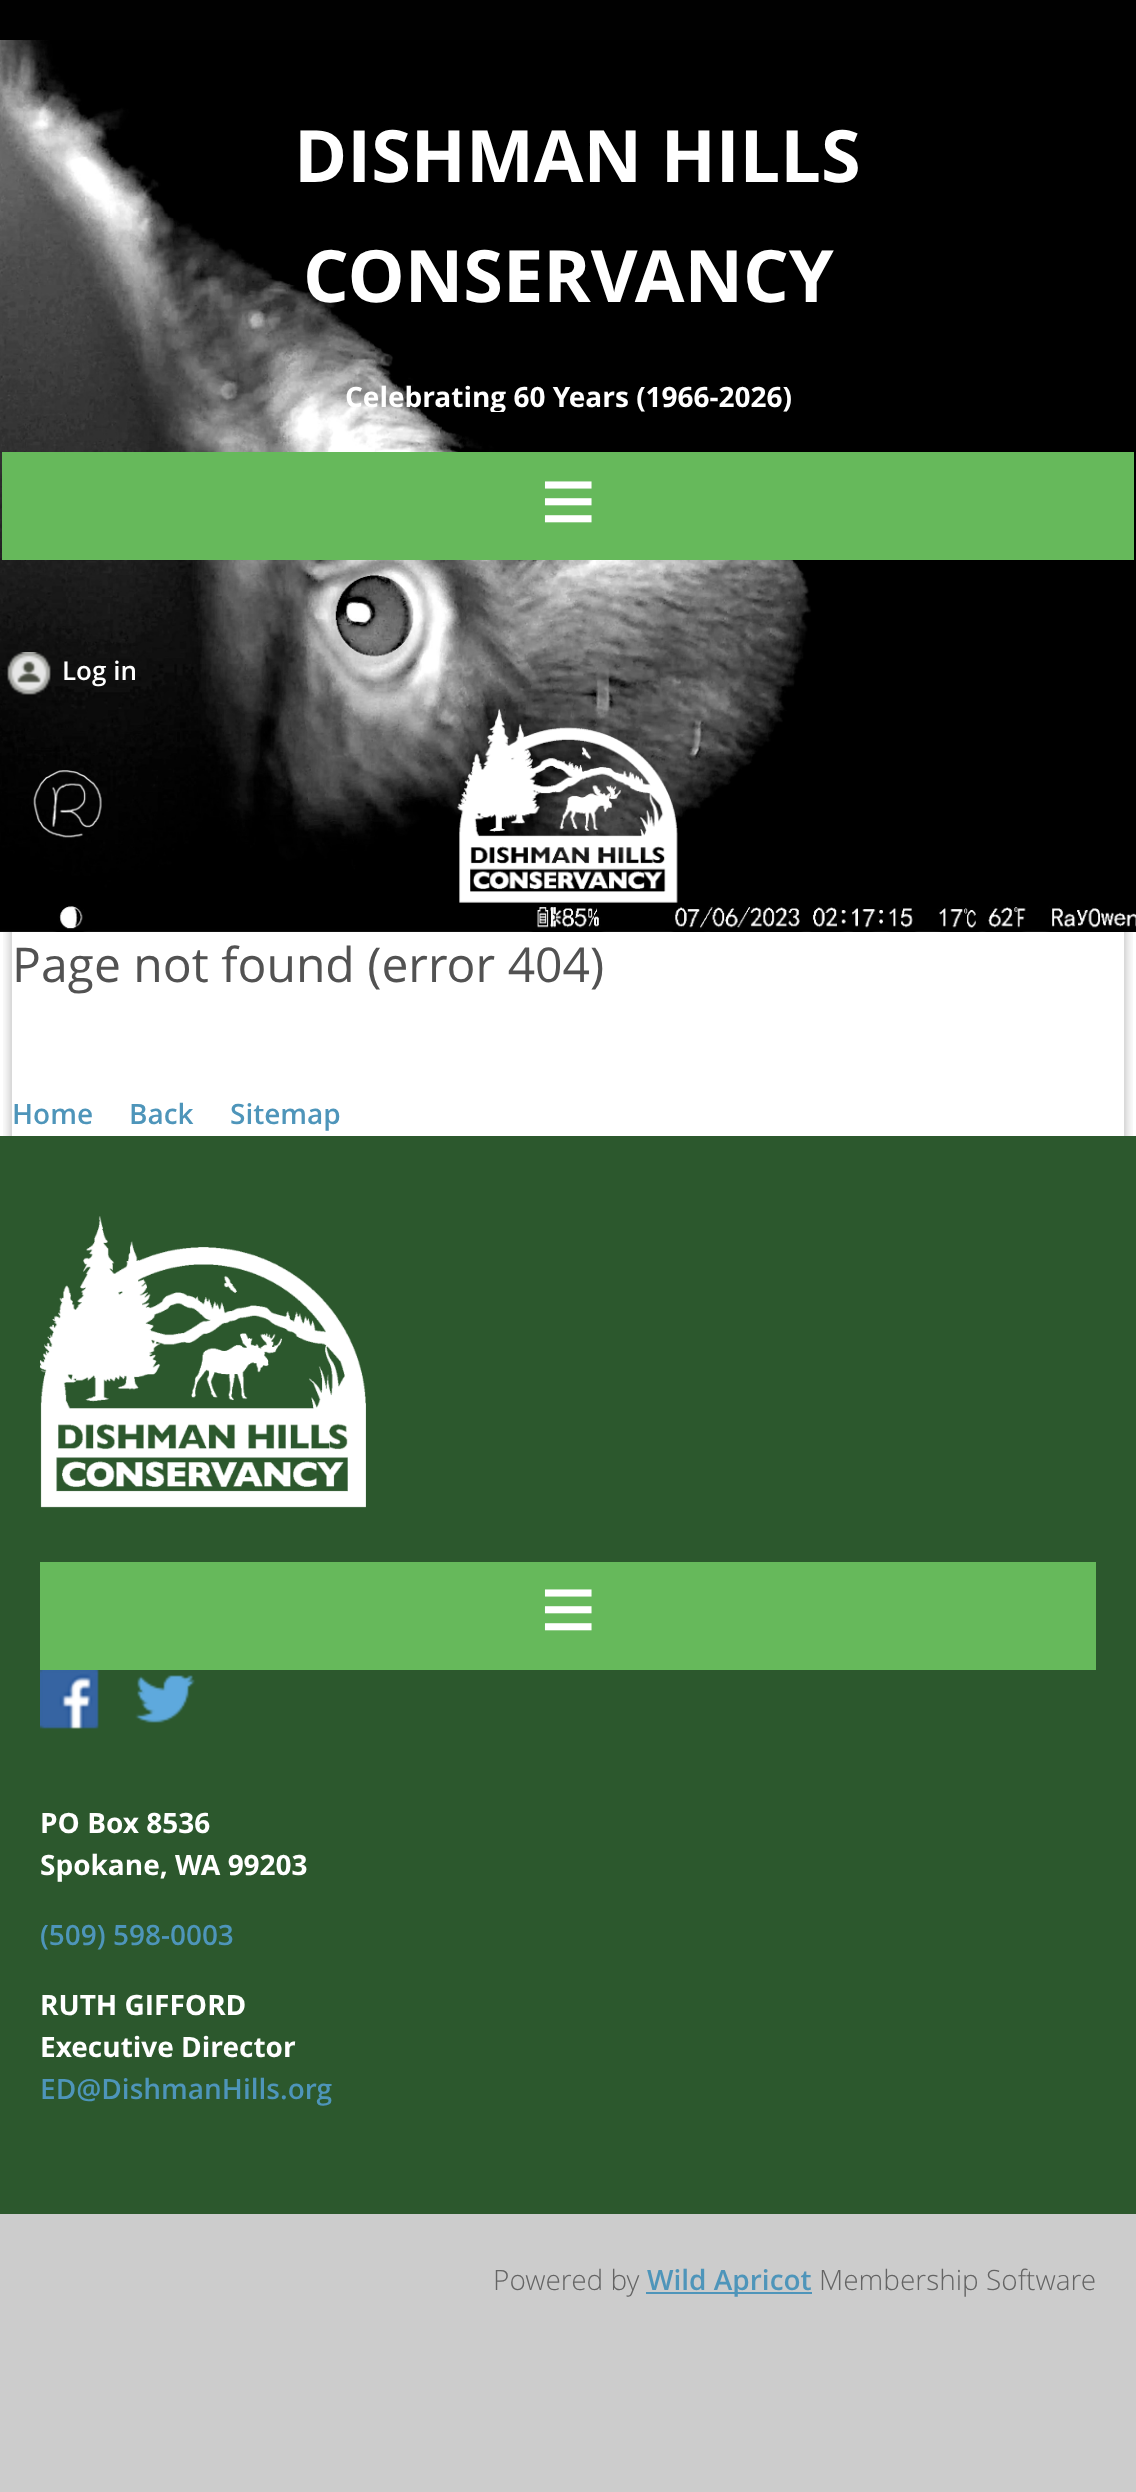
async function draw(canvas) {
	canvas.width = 1136;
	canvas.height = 2492;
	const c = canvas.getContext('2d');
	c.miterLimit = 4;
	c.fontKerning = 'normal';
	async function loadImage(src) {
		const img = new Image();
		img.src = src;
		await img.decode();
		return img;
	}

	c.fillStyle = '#ccc';
	c.fillRect(0, 0, 1136, 2492);
	c.fillStyle = '#010101';
	c.fillRect(0, 0, 1136, 40);
	c.drawImage(await loadImage('img1.png'), 0, 40, 1136, 892);
	c.font = 'bold 72px Open Sans';
	c.fillStyle = '#fff';
	c.fillText('DISHMAN HILLS', 294, 182);
	c.fillText('CONSERVANCY', 303, 302);
	c.save();
	c.beginPath();
	c.rect(2, 42, 1132, 370);
	c.clip();
	c.font = 'bold 28px Open Sans';
	c.fillText('Celebrating 60 Years (1966-2026)', 345, 407);
	c.restore();
	c.fillStyle = '#66b95b';
	c.fillRect(2, 452, 1132, 108);
	c.font = 'bold 100px Liberation Serif';
	c.fillStyle = '#fff';
	c.fillText('≡', 540, 535);
	c.drawImage(await loadImage('img2.png'), 7, 652, 44, 43);
	c.font = '600 26px Open Sans';
	c.fillText('Log in', 62, 680);
	c.drawImage(await loadImage('img3.png'), 457, 708, 221, 195);
	c.fillRect(0, 932, 1136, 204);
	c.drawImage(await loadImage('img4.png'), 3, 932, 1130, 204);
	c.font = '48px Open Sans';
	c.fillStyle = '#525252';
	c.fillText('Page not found (error 404)', 12, 982);
	c.font = '600 28px Open Sans';
	c.fillStyle = '#4e95ba';
	for (const [text, x, y] of [
		['Home', 12, 1124],
		['Back', 129, 1124],
		['Sitemap', 230, 1124],
	]) {
		c.fillText(text, x, y);
	}
	c.fillStyle = '#2c582d';
	c.fillRect(0, 1136, 1136, 1078);
	c.drawImage(await loadImage('img5.png'), 40, 1216, 326, 292);
	c.fillStyle = '#66b95b';
	c.fillRect(40, 1562, 1056, 108);
	c.font = 'bold 100px Liberation Serif';
	c.fillStyle = '#fff';
	c.fillText('≡', 540, 1643);
	c.drawImage(await loadImage('img6.png'), 40, 1670, 59, 59);
	c.drawImage(await loadImage('img7.png'), 135, 1675, 60, 48);
	c.font = 'bold 28px Open Sans';
	c.fillText('PO Box 8536', 40, 1833);
	c.fillText('Spokane, WA 99203', 40, 1875);
	c.font = '600 28px Open Sans';
	c.fillStyle = '#4e95ba';
	c.fillText('(509) 598-0003', 40, 1945);
	c.font = 'bold 28px Open Sans';
	c.fillStyle = '#fff';
	c.fillText('RUTH GIFFORD', 40, 2015);
	c.fillText('Executive Director', 40, 2057);
	c.font = '600 28px Open Sans';
	c.fillStyle = '#4e95ba';
	c.fillText('ED@DishmanHills.org', 40, 2099);
	c.font = '300 28px Open Sans';
	c.fillStyle = '#646464';
	c.fillText('Powered by', 493, 2290);
	c.fillStyle = '#4e95ba';
	c.fillRect(646, 2292, 166, 2);
	c.font = '600 28px Open Sans';
	c.fillText('Wild Apricot', 647, 2290);
	c.font = '300 28px Open Sans';
	c.fillStyle = '#646464';
	c.fillText('Membership Software', 819, 2290);
}

draw(document.querySelector('canvas'));
